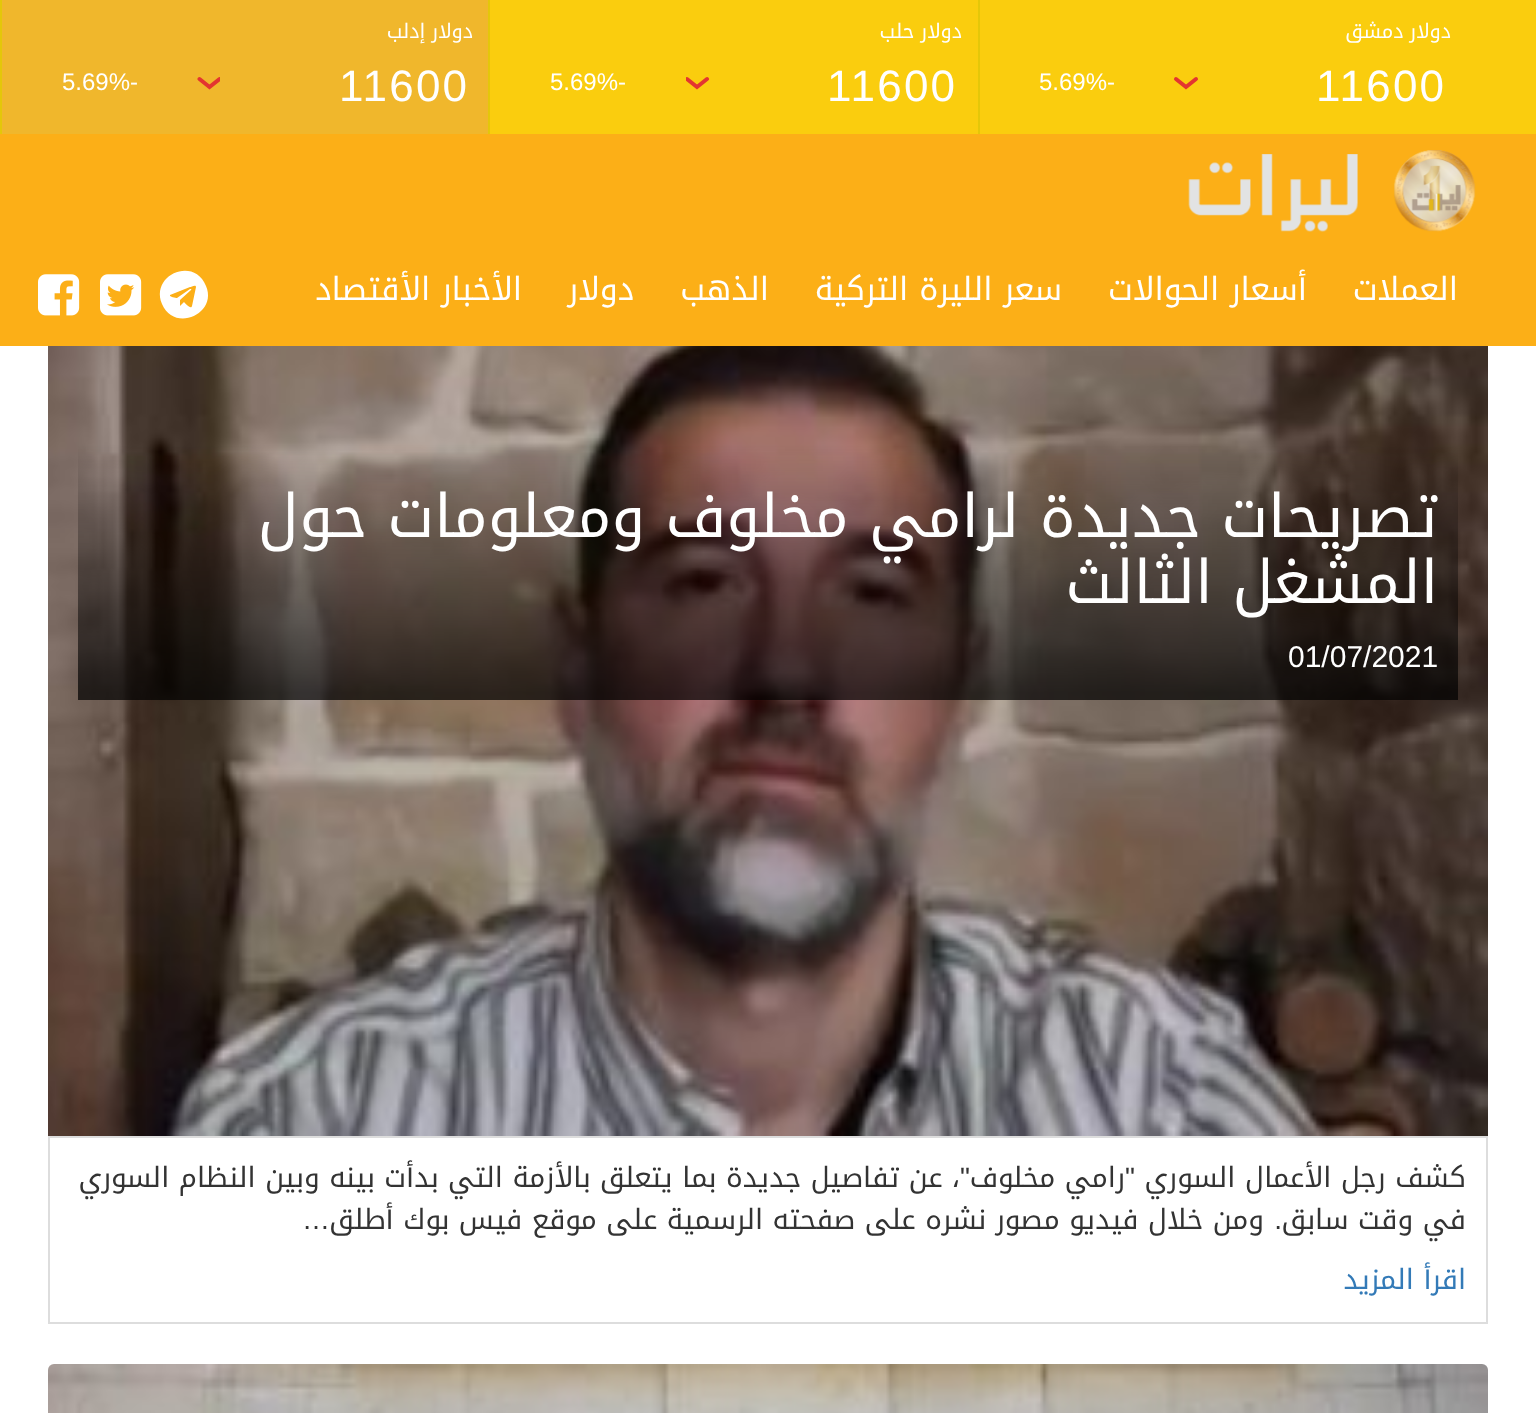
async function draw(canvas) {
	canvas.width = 1536;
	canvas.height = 1413;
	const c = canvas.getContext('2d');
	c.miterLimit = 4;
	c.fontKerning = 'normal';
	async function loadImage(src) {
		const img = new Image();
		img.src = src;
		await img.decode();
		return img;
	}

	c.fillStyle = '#fff';
	c.fillRect(0, 0, 1536, 1413);
	c.fillStyle = '#facd0e';
	c.fillRect(490, 0, 1046, 134);
	c.fillStyle = '#e4c709';
	c.fillRect(978, 0, 2, 136);
	c.letterSpacing = '0.5px';
	c.wordSpacing = '-1px';
	c.direction = 'rtl';
	c.font = '20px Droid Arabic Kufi';
	c.fillStyle = '#fff';
	c.fillText('دولار دمشق', 1451, 38);
	c.letterSpacing = '2.25px';
	c.wordSpacing = '0px';
	c.direction = 'ltr';
	c.font = '44px Liberation Sans';
	c.fillText('11600', 1316, 101);
	c.beginPath();
	c.moveTo(1196, 79);
	c.lineTo(1186, 87);
	c.lineTo(1176, 79);
	c.strokeStyle = '#e33530';
	c.lineWidth = 4;
	c.lineCap = 'round';
	c.stroke();
	c.letterSpacing = '0px';
	c.font = '24px Liberation Sans';
	c.fillText('5.69%-', 1039, 90);
	c.fillStyle = '#e4c709';
	c.fillRect(488, 0, 2, 134);
	c.letterSpacing = '0.5px';
	c.wordSpacing = '-1px';
	c.direction = 'rtl';
	c.font = '20px Droid Arabic Kufi';
	c.fillStyle = '#fff';
	c.fillText('دولار حلب', 962, 38);
	c.letterSpacing = '2.25px';
	c.wordSpacing = '0px';
	c.direction = 'ltr';
	c.font = '44px Liberation Sans';
	c.fillText('11600', 827, 101);
	c.save();
	c.beginPath();
	c.rect(686, 76, 24, 16);
	c.clip();
	c.beginPath();
	c.moveTo(707, 79);
	c.lineTo(697, 87);
	c.lineTo(687, 79);
	c.stroke();
	c.restore();
	c.letterSpacing = '0px';
	c.font = '24px Liberation Sans';
	c.fillText('5.69%-', 550, 90);
	c.fillStyle = '#f0b72c';
	c.fillRect(2, 0, 486, 134);
	c.fillStyle = '#e4c709';
	c.fillRect(0, 0, 2, 134);
	c.letterSpacing = '0.5px';
	c.wordSpacing = '-1px';
	c.direction = 'rtl';
	c.font = '20px Droid Arabic Kufi';
	c.fillStyle = '#fff';
	c.fillText('دولار إدلب', 473, 38);
	c.letterSpacing = '2.25px';
	c.wordSpacing = '0px';
	c.direction = 'ltr';
	c.font = '44px Liberation Sans';
	c.fillText('11600', 339, 101);
	c.save();
	c.beginPath();
	c.rect(196, 76, 24, 16);
	c.clip();
	c.beginPath();
	c.moveTo(219.5, 79);
	c.lineTo(209.5, 87);
	c.lineTo(199.5, 79);
	c.stroke();
	c.restore();
	c.letterSpacing = '0px';
	c.font = '24px Liberation Sans';
	c.fillText('5.69%-', 62, 90);
	c.fillStyle = '#fcaf17';
	c.fillRect(0, 134, 1536, 212);
	c.drawImage(await loadImage('img1.png'), 1188, 150, 288, 82);
	c.direction = 'rtl';
	c.font = '32px Droid Arabic Kufi';
	c.fillStyle = '#fff';
	for (const [text, x, y] of [
		['العملات', 1458, 300],
		['أسعار الحوالات', 1307, 300],
		['سعر الليرة التركية', 1062, 300],
		['الذهب', 769, 300],
		['دولار', 634, 300],
		['الأخبار الأقتصاد', 522, 300],
	]) {
		c.fillText(text, x, y);
	}
	c.beginPath();
	c.moveTo(192, 306);
	c.lineTo(196, 287);
	c.bezierCurveTo(196, 284, 191, 287, 190, 287);
	c.lineTo(170, 295);
	c.bezierCurveTo(169, 297, 176, 298, 177, 298);
	c.lineTo(190, 289);
	c.bezierCurveTo(191, 289, 192, 289, 191, 290);
	c.lineTo(180, 300);
	c.lineTo(180, 306);
	c.lineTo(184, 302);
	c.bezierCurveTo(185, 303, 191, 310, 192, 306);
	c.closePath();
	c.moveTo(206, 286);
	c.bezierCurveTo(218, 314, 174, 333, 162, 304);
	c.bezierCurveTo(150, 275, 194, 256, 206, 286);
	c.closePath();
	c.fill();
	c.drawImage(await loadImage('img2.png'), 100, 274, 42, 42);
	c.drawImage(await loadImage('img3.png'), 38, 274, 42, 42);
	c.drawImage(await loadImage('img4.png'), 48, 346, 1440, 790);
	c.font = '60px Droid Arabic Kufi';
	c.fillText('تصريحات جديدة لرامي مخلوف ومعلومات حول', 1438, 537);
	c.fillText('المشغل الثالث', 1438, 603);
	c.direction = 'ltr';
	c.font = '30px Liberation Sans';
	c.fillText('01/07/2021', 1288, 667);
	c.strokeStyle = '#ddd';
	c.lineWidth = 2;
	c.strokeRect(49, 1137, 1438, 186);
	c.direction = 'rtl';
	c.font = '28px Droid Arabic Kufi';
	c.fillStyle = '#333';
	c.fillText('كشف رجل الأعمال السوري', 1466, 1187);
	c.font = '28px Liberation Sans';
	c.fillText('"', 1135, 1187);
	c.font = '28px Droid Arabic Kufi';
	c.fillText('رامي مخلوف', 1125, 1187);
	c.font = '28px Liberation Sans';
	c.fillText('"', 970, 1187);
	c.font = '28px Droid Arabic Kufi';
	c.fillText('، عن تفاصيل جديدة بما يتعلق بالأزمة التي بدأت بينه وبين النظام السوري', 960, 1187);
	c.fillText('في وقت سابق', 1466, 1229);
	c.font = '28px Liberation Sans';
	c.fillText('.', 1282, 1229);
	c.font = '28px Droid Arabic Kufi';
	c.fillText('ومن خلال فيديو مصور نشره على صفحته الرسمية على موقع فيس بوك أطلق', 1264, 1229);
	c.font = '28px Liberation Sans';
	c.fillText('…', 330, 1229);
	c.font = '28px Droid Arabic Kufi';
	c.fillStyle = '#337ab7';
	c.fillText('اقرأ المزيد', 1466, 1289);
	c.drawImage(await loadImage('img5.png'), 48, 1364, 1440, 49);
}

draw(document.querySelector('canvas'));
